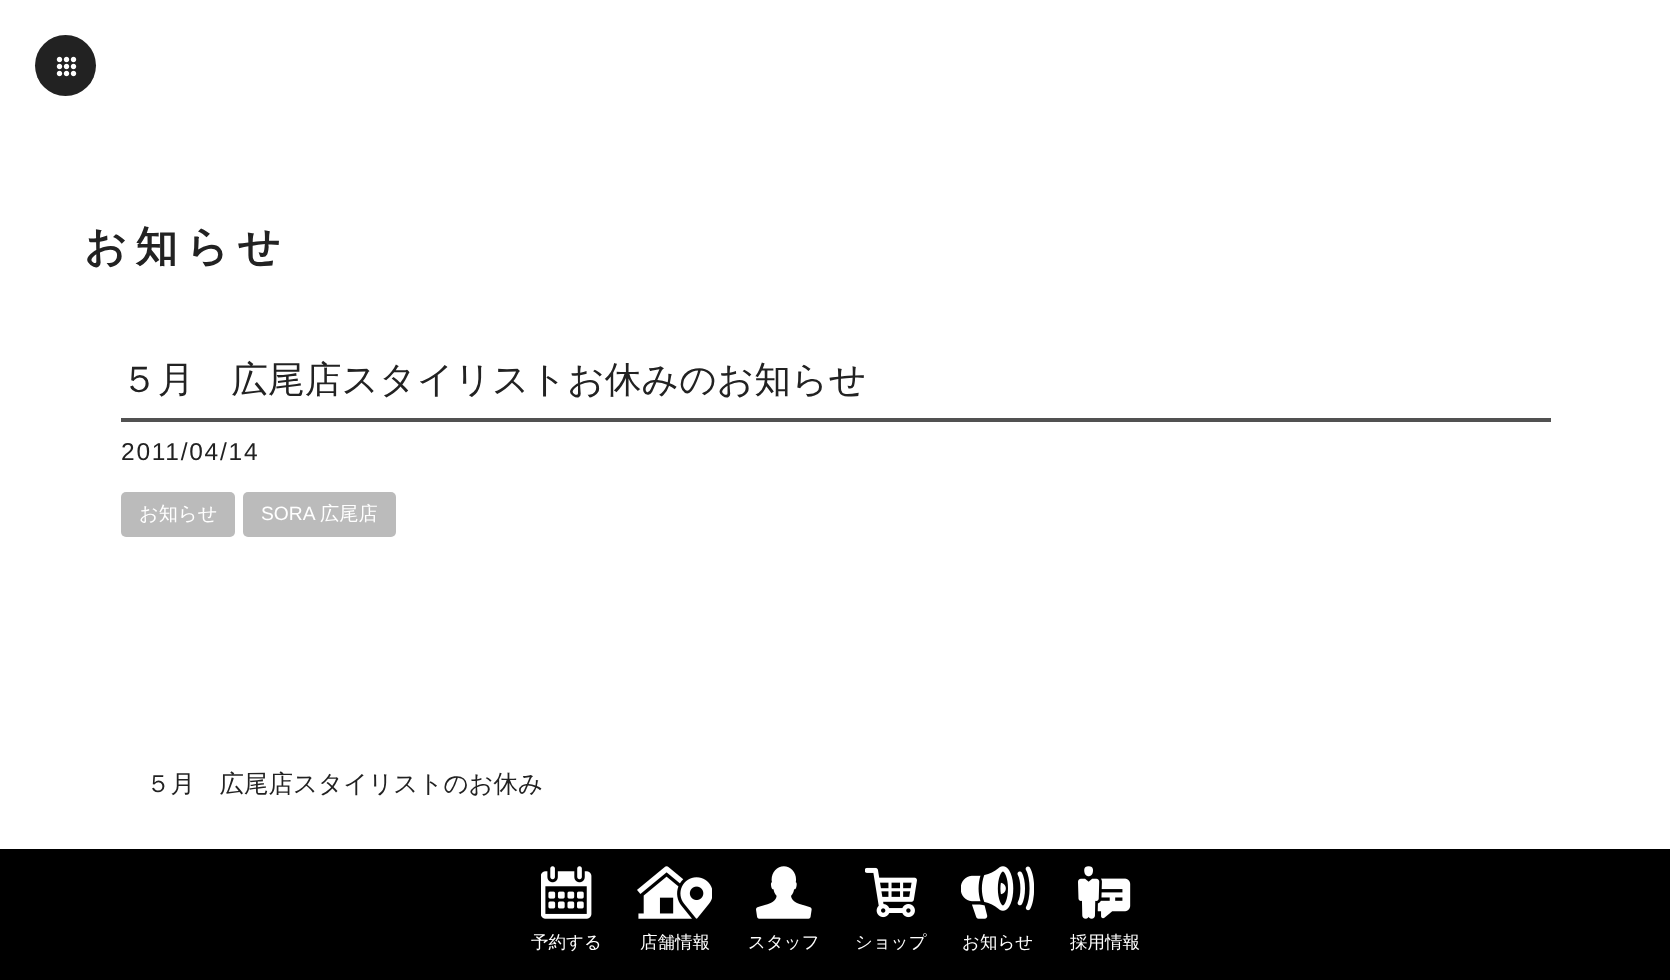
async function draw(canvas) {
	canvas.width = 1670;
	canvas.height = 980;
	const c = canvas.getContext('2d');
	c.miterLimit = 4;
	c.fontKerning = 'normal';
	async function loadImage(src) {
		const img = new Image();
		img.src = src;
		await img.decode();
		return img;
	}

	c.fillStyle = '#fff';
	c.fillRect(0, 0, 1670, 980);
	c.fillStyle = '#222';
	c.beginPath();
	c.arc(65.5, 65.5, 30.5, 0, 2 * Math.PI);
	c.fill();
	c.drawImage(await loadImage('img1.png'), 56, 56, 21, 21);
	c.letterSpacing = '8.5px';
	c.font = 'bold 42px WenQuanYi Zen Hei';
	c.fillText('お知らせ', 84, 261);
	c.fillStyle = '#515151';
	c.fillRect(121, 418, 1430, 4);
	c.letterSpacing = '0px';
	c.font = '500 36.75px WenQuanYi Zen Hei';
	c.fillStyle = '#222';
	c.fillText('５月　広尾店スタイリストお休みのお知らせ', 121, 392);
	c.letterSpacing = '1.75px';
	c.font = '24.5px Liberation Sans';
	c.fillText('2011/04/14', 121, 460);
	c.fillStyle = '#bbb';
	c.beginPath();
	c.roundRect(121, 492, 114, 45, 5);
	c.fill();
	c.letterSpacing = '0px';
	c.font = '500 19.25px WenQuanYi Zen Hei';
	c.fillStyle = '#fff';
	c.fillText('お知らせ', 139, 520);
	c.fillStyle = '#bbb';
	c.beginPath();
	c.roundRect(243, 492, 153, 45, 5);
	c.fill();
	c.font = '19.25px Liberation Sans';
	c.fillStyle = '#fff';
	c.fillText('SORA', 261, 520);
	c.font = '500 19.25px WenQuanYi Zen Hei';
	c.fillText('広尾店', 320, 520);
	c.font = '500 24.5px WenQuanYi Zen Hei';
	c.fillStyle = '#222';
	c.fillText('５月　広尾店スタイリストのお休み', 146, 792);
	c.fillStyle = '#000';
	c.fillRect(0, 849, 1670, 131);
	c.drawImage(await loadImage('img2.png'), 541, 866, 51, 53);
	c.font = '500 17.5px WenQuanYi Zen Hei';
	c.fillStyle = '#fff';
	c.fillText('予約する', 531, 948);
	c.drawImage(await loadImage('img3.png'), 637, 866, 75, 53);
	c.fillText('店舗情報', 640, 948);
	c.drawImage(await loadImage('img4.png'), 756, 866, 56, 53);
	c.fillText('スタッフ', 748, 948);
	c.drawImage(await loadImage('img5.png'), 865, 867, 52, 51);
	c.fillText('ショップ', 855, 948);
	c.drawImage(await loadImage('img6.png'), 961, 866, 73, 53);
	c.fillText('お知らせ', 962, 948);
	c.drawImage(await loadImage('img7.png'), 1078, 866, 53, 53);
	c.fillText('採用情報', 1070, 948);
}

draw(document.querySelector('canvas'));
